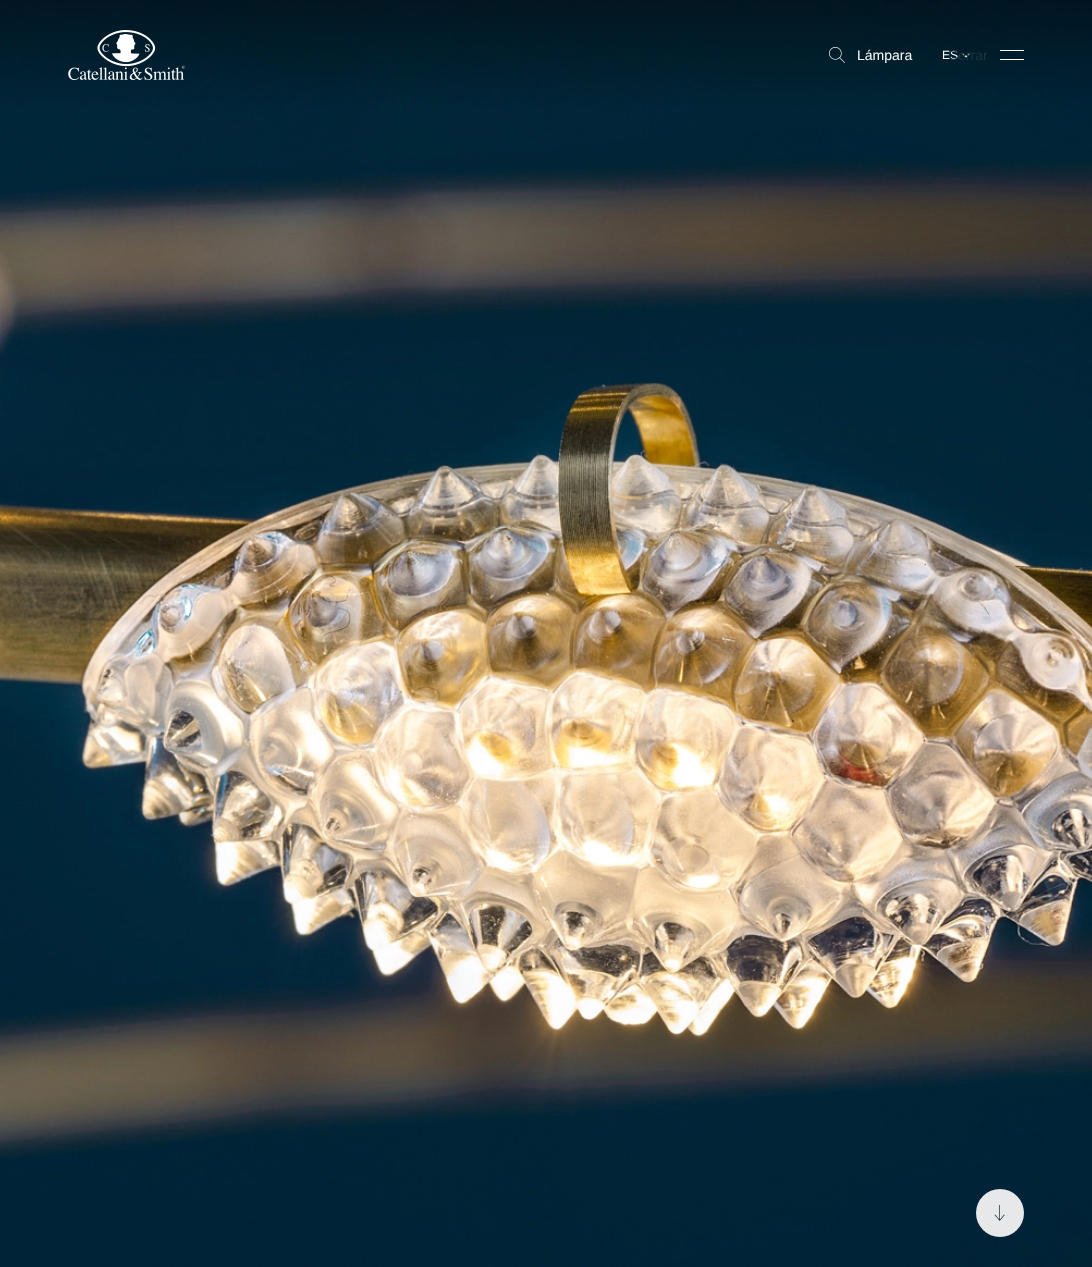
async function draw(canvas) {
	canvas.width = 1092;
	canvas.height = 1267;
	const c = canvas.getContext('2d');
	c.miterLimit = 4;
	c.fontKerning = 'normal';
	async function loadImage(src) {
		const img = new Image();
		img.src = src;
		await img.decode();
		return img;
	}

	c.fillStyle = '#fff';
	c.fillRect(0, 0, 1092, 1267);
	c.drawImage(await loadImage('img1.png'), 0, 0, 1092, 1267);
	c.fillStyle = '#e7e8ea';
	c.beginPath();
	c.arc(1000, 1213, 24, 0, 2 * Math.PI);
	c.fill();
	c.drawImage(await loadImage('img2.png'), 994, 1205, 11, 16);
	c.drawImage(await loadImage('img3.png'), 68, 30, 117, 50);
	c.drawImage(await loadImage('img4.png'), 829, 47, 16, 16);
	c.font = '14px Liberation Sans';
	c.fillStyle = '#fff';
	c.fillText('Lámpara', 857, 60);
	c.font = '12px Liberation Sans';
	c.fillText('ES', 942, 59);
	c.drawImage(await loadImage('img5.png'), 962, 53, 8, 5);
	c.font = '14px Liberation Sans';
	c.fillStyle = '#1a3440';
	c.fillText('Cerrar', 948, 60);
	c.fillStyle = '#fff';
	c.fillRect(1000, 50, 24, 1);
	c.fillRect(1000, 59, 24, 1);
}

draw(document.querySelector('canvas'));
